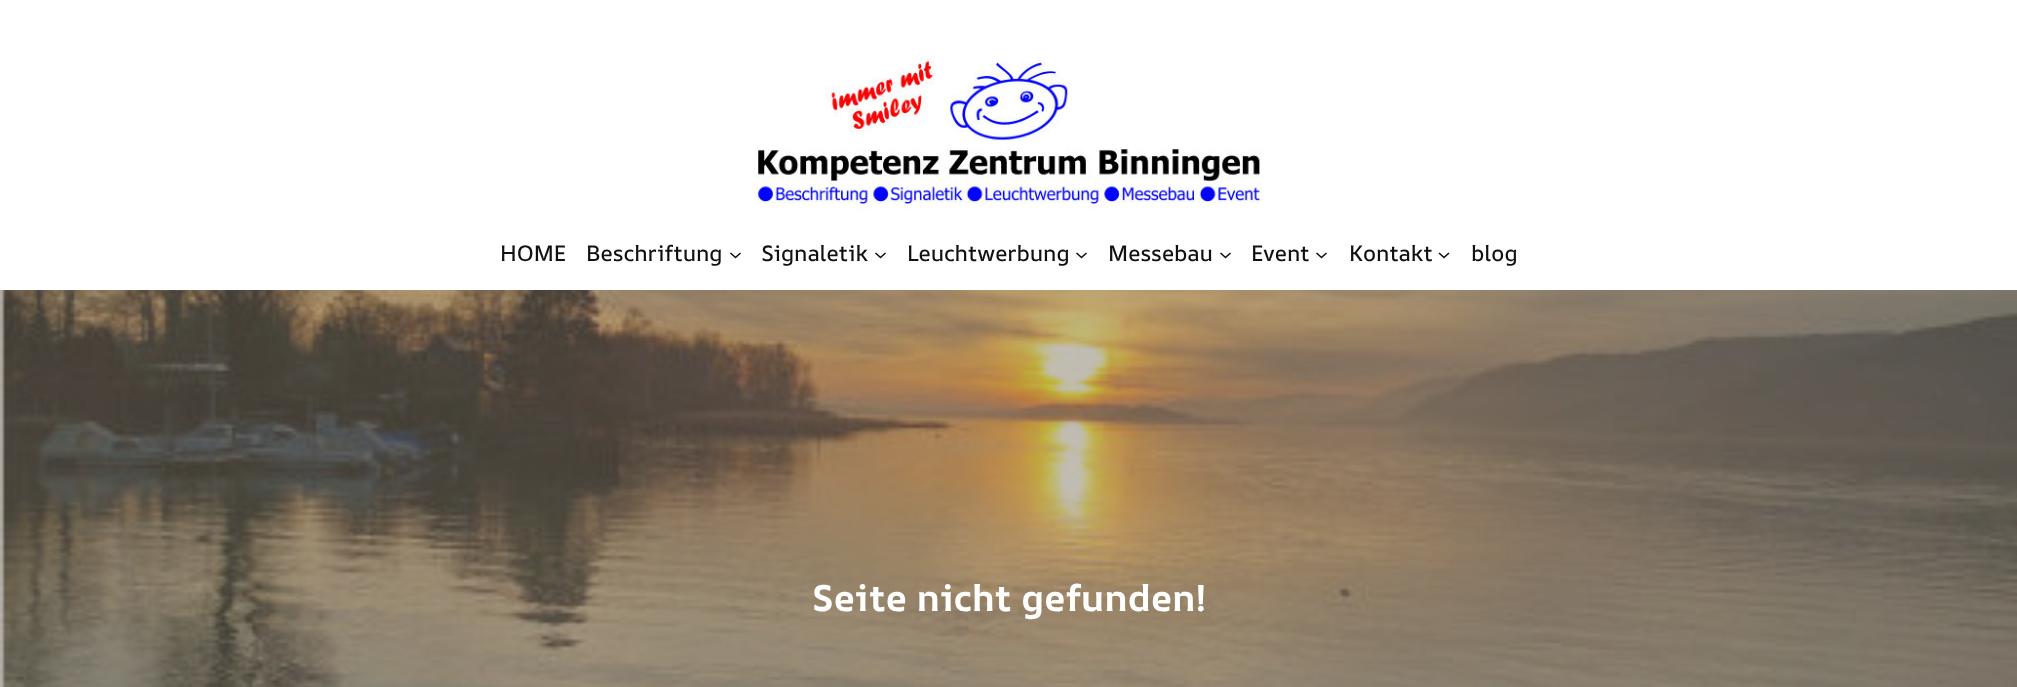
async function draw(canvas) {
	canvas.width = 2017;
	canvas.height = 687;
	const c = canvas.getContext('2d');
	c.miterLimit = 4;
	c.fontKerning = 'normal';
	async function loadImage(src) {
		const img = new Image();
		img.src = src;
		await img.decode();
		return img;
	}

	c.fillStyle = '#fff';
	c.fillRect(0, 0, 2017, 687);
	c.drawImage(await loadImage('img1.png'), 755, 55, 508, 156);
	c.font = '500 22px AR One Sans';
	c.fillStyle = '#111';
	c.fillText('HOME', 500, 261);
	c.fillText('Beschriftung', 586, 261);
	c.beginPath();
	c.moveTo(730.5, 253);
	c.lineTo(735.5, 257.5);
	c.lineTo(740.5, 253);
	c.strokeStyle = '#111';
	c.lineWidth = 1.6;
	c.stroke();
	c.fillText('Signaletik', 761, 261);
	c.beginPath();
	c.moveTo(875.5, 253);
	c.lineTo(880.5, 257.5);
	c.lineTo(885.5, 253);
	c.stroke();
	c.fillText('Leuchtwerbung', 907, 261);
	c.beginPath();
	c.moveTo(1076.5, 253);
	c.lineTo(1081.5, 257.5);
	c.lineTo(1086.5, 253);
	c.stroke();
	c.fillText('Messebau', 1108, 261);
	c.beginPath();
	c.moveTo(1220.5, 253);
	c.lineTo(1225.5, 257.5);
	c.lineTo(1230.5, 253);
	c.stroke();
	c.fillText('Event', 1251, 261);
	c.beginPath();
	c.moveTo(1316.5, 253);
	c.lineTo(1321.5, 257.5);
	c.lineTo(1326.5, 253);
	c.stroke();
	c.fillText('Kontakt', 1349, 261);
	c.beginPath();
	c.moveTo(1439, 253);
	c.lineTo(1444, 257.5);
	c.lineTo(1449, 253);
	c.stroke();
	c.fillText('blog', 1471, 261);
	c.drawImage(await loadImage('img2.png'), 0, 290, 2017, 397);
	c.font = 'bold 37px AR One Sans';
	c.fillStyle = '#fff';
	c.fillText('Seite nicht gefunden!', 812, 611);
}

draw(document.querySelector('canvas'));
